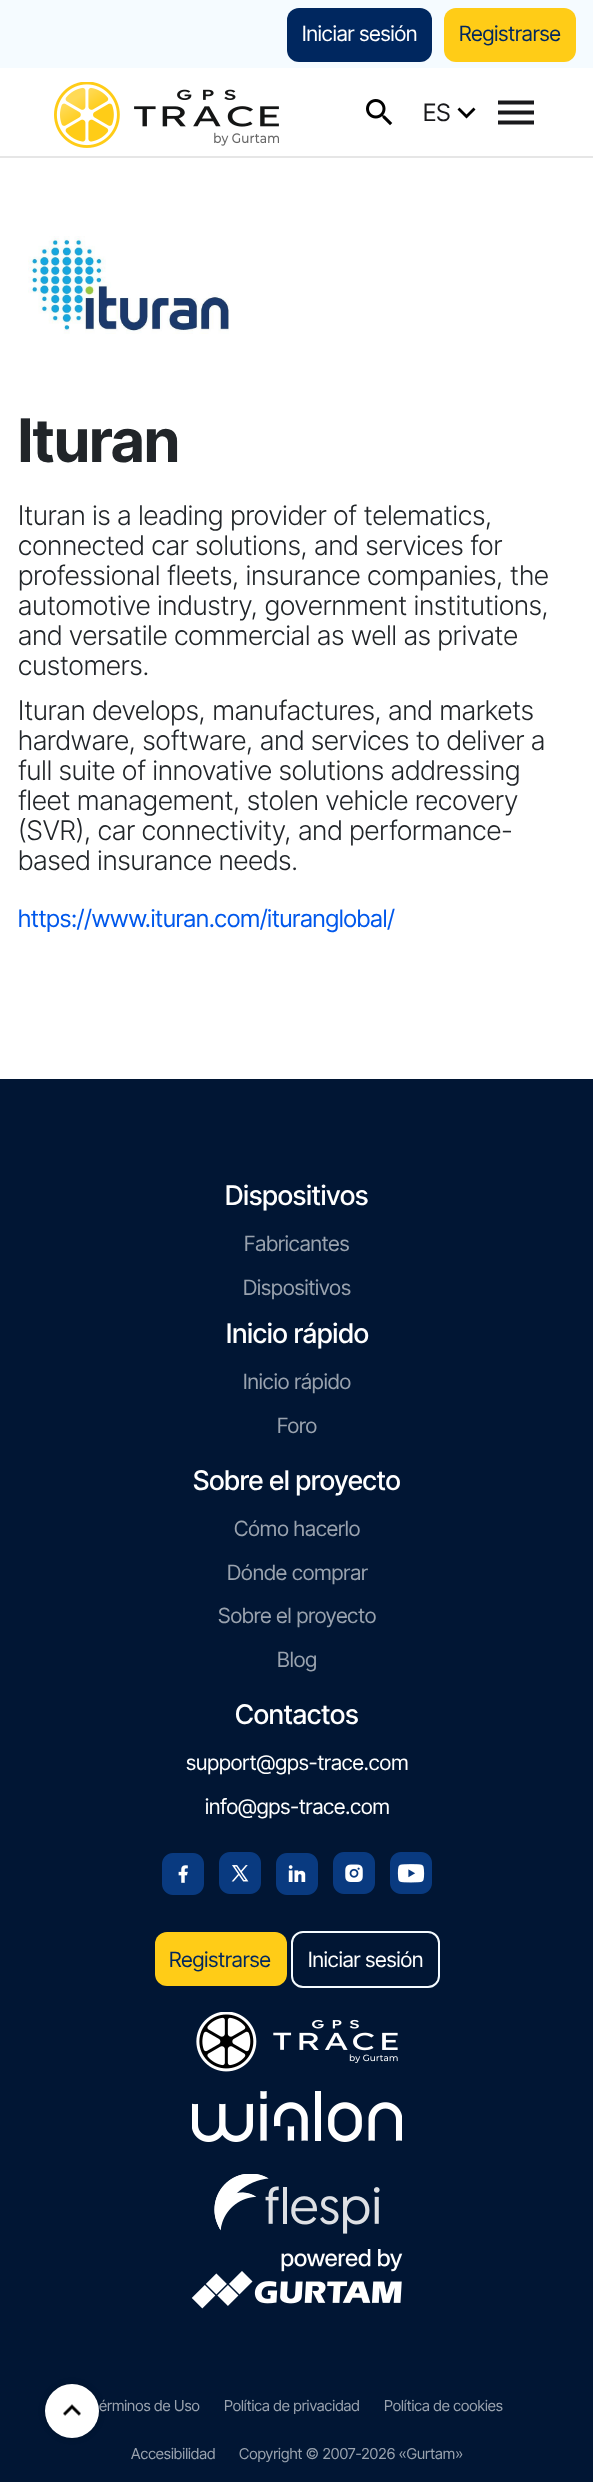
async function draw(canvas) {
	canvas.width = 593;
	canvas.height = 2482;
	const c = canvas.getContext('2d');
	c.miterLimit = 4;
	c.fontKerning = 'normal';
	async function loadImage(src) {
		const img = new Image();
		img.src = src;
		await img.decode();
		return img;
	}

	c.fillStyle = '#fff';
	c.fillRect(0, 0, 593, 2482);
	c.fillStyle = '#f5fbff';
	c.fillRect(0, 0, 593, 68);
	c.fillStyle = '#00275f';
	c.beginPath();
	c.roundRect(287, 8, 145, 54, 12);
	c.fill();
	c.font = '21px Inter Tight';
	c.fillStyle = '#fff';
	c.fillText('Iniciar sesión', 302, 41);
	c.fillStyle = '#ffcc17';
	c.beginPath();
	c.roundRect(444, 8, 132, 54, 12);
	c.fill();
	c.fillStyle = '#00275f';
	c.fillText('Registrarse', 459, 41);
	c.fillStyle = '#e6e6e6';
	c.fillRect(0, 156, 593, 2);
	c.drawImage(await loadImage('img1.png'), 54, 82, 225, 66);
	c.drawImage(await loadImage('img2.png'), 366, 99, 27, 27);
	c.font = '24px Inter Tight';
	c.fillStyle = '#19191c';
	c.fillText('ES', 423, 121);
	c.fillStyle = '#000';
	c.beginPath();
	c.moveTo(459.5, 107.5);
	c.lineTo(466.5, 114.5);
	c.lineTo(473.5, 107.5);
	c.lineTo(475.5, 109.5);
	c.lineTo(466.5, 118.5);
	c.lineTo(457.5, 109.5);
	c.closePath();
	c.fill();
	c.drawImage(await loadImage('img3.png'), 498, 100, 36, 25);
	c.drawImage(await loadImage('img4.png'), 28, 236, 201, 98);
	c.font = 'bold 60px Inter Tight';
	c.fillStyle = '#212529';
	c.fillText('Ituran', 18, 462);
	c.font = '300 27px Inter Tight';
	for (const [text, x, y] of [
		['Ituran is a leading provider of telematics,', 18, 525],
		['connected car solutions, and services for', 18, 555],
		['professional fleets, insurance companies, the', 18, 585],
		['automotive industry, government institutions,', 18, 615],
		['and versatile commercial as well as private', 18, 645],
		['customers.', 18, 675],
		['Ituran develops, manufactures, and markets', 18, 720],
		['hardware, software, and services to deliver a', 18, 750],
		['full suite of innovative solutions addressing', 18, 780],
		['fleet management, stolen vehicle recovery', 18, 810],
		['(SVR), car connectivity, and performance-', 18, 840],
		['based insurance needs.', 18, 870],
	]) {
		c.fillText(text, x, y);
	}
	c.font = '24px Inter Tight';
	c.fillStyle = '#0058ec';
	c.fillText('https://www.ituran.com/ituranglobal/', 18, 927);
	c.fillStyle = '#011634';
	c.fillRect(0, 1079, 593, 1403);
	c.fillStyle = '#00000033';
	c.filter = 'blur(3px)';
	c.beginPath();
	c.roundRect(45, 2384, 54, 54, 27);
	c.fill();
	c.filter = 'none';
	c.fillStyle = '#fff';
	c.beginPath();
	c.arc(72, 2411, 27, 0, 2 * Math.PI);
	c.fill();
	c.drawImage(await loadImage('img5.png'), 63, 2404, 18, 12);
	c.font = '500 27px Inter Tight';
	c.fillText('Dispositivos', 225, 1205);
	c.font = '21px Inter Tight';
	c.fillStyle = '#99a2ae';
	c.fillText('Fabricantes', 244, 1251);
	c.fillText('Dispositivos', 243, 1295);
	c.font = '500 27px Inter Tight';
	c.fillStyle = '#fff';
	c.fillText('Inicio rápido', 226, 1343);
	c.font = '21px Inter Tight';
	c.fillStyle = '#99a2ae';
	c.fillText('Inicio rápido', 243, 1389);
	c.fillText('Foro', 277, 1433);
	c.font = '500 27px Inter Tight';
	c.fillStyle = '#fff';
	c.fillText('Sobre el proyecto', 193, 1490);
	c.font = '21px Inter Tight';
	c.fillStyle = '#99a2ae';
	for (const [text, x, y] of [
		['Cómo hacerlo', 234, 1536],
		['Dónde comprar', 227, 1580],
		['Sobre el proyecto', 218, 1623],
		['Blog', 277, 1667],
	]) {
		c.fillText(text, x, y);
	}
	c.font = '500 27px Inter Tight';
	c.fillStyle = '#fff';
	c.fillText('Contactos', 235, 1724);
	c.font = '21px Inter Tight';
	c.fillText('support@gps-trace.com', 186, 1770);
	c.fillText('info@gps-trace.com', 205, 1814);
	c.drawImage(await loadImage('img6.png'), 162, 1853, 42, 42);
	c.drawImage(await loadImage('img7.png'), 219, 1852, 42, 42);
	c.drawImage(await loadImage('img8.png'), 276, 1853, 42, 42);
	c.drawImage(await loadImage('img9.png'), 333, 1852, 42, 42);
	c.drawImage(await loadImage('img10.png'), 390, 1852, 42, 42);
	c.fillStyle = '#ffcc17';
	c.beginPath();
	c.roundRect(155, 1932, 132, 54, 12);
	c.fill();
	c.fillStyle = '#00275f';
	c.fillText('Registrarse', 169, 1967);
	c.beginPath();
	c.roundRect(292, 1932, 147, 55, 11);
	c.strokeStyle = '#f5fbff';
	c.lineWidth = 2;
	c.stroke();
	c.fillStyle = '#fff';
	c.fillText('Iniciar sesión', 308, 1967);
	c.drawImage(await loadImage('img11.png'), 196, 2012, 202, 60);
	c.drawImage(await loadImage('img12.png'), 192, 2091, 210, 51);
	c.drawImage(await loadImage('img13.png'), 214, 2174, 166, 60);
	c.drawImage(await loadImage('img14.png'), 191, 2249, 212, 60);
	c.font = '15px Inter Tight';
	c.fillStyle = '#99a2ae';
	for (const [text, x, y] of [
		['érminos de Uso', 99, 2411],
		['Política de privacidad', 224, 2411],
		['Política de cookies', 384, 2411],
		['Accesibilidad', 131, 2459],
		['Copyright © 2007-2026 «Gurtam»', 239, 2459],
	]) {
		c.fillText(text, x, y);
	}
}

draw(document.querySelector('canvas'));
